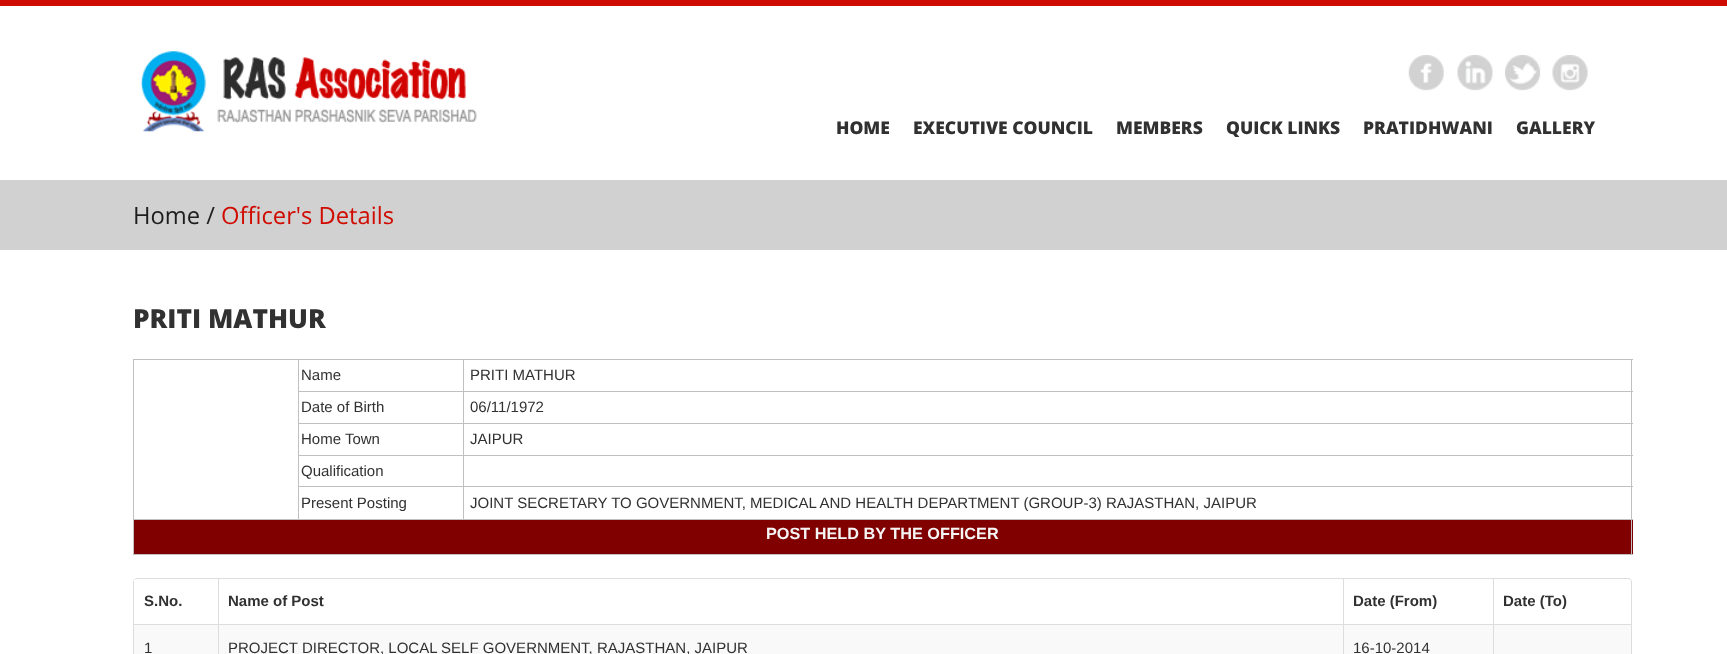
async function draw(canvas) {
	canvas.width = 1727;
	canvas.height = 654;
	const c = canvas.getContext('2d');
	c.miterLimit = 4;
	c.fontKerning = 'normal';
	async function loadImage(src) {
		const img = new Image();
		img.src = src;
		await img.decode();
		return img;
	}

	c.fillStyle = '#fff';
	c.fillRect(0, 0, 1727, 654);
	c.fillStyle = '#d00b01';
	c.fillRect(0, 0, 1727, 6);
	c.drawImage(await loadImage('img1.png'), 140, 51, 337, 81);
	c.drawImage(await loadImage('img2.png'), 1408, 55, 36, 36);
	c.drawImage(await loadImage('img3.png'), 1457, 55, 36, 36);
	c.drawImage(await loadImage('img4.png'), 1505, 55, 36, 36);
	c.drawImage(await loadImage('img5.png'), 1552, 55, 36, 36);
	c.font = '800 17.5px Open Sans';
	c.fillStyle = '#313131';
	for (const [text, x, y] of [
		['HOME', 836, 134],
		['EXECUTIVE COUNCIL', 913, 134],
		['MEMBERS', 1116, 134],
		['QUICK LINKS', 1226, 134],
		['PRATIDHWANI', 1363, 134],
		['GALLERY', 1516, 134],
	]) {
		c.fillText(text, x, y);
	}
	c.fillStyle = '#d1d1d1';
	c.fillRect(0, 180, 1727, 70);
	c.font = '23.75px Open Sans';
	c.fillStyle = '#1e1e1e';
	c.fillText('Home /', 133, 224);
	c.fillStyle = '#d00b01';
	c.fillText('Officer\'s Details', 221, 224);
	c.font = '800 26.25px Open Sans';
	c.fillStyle = '#313131';
	c.fillText('PRITI MATHUR', 133, 328);
	for (const [x, y, w, h, color] of [
		[133, 359, 1500, 1, '#c0c0c0'],
		[134, 520, 1499, 34, '#800000'],
		[1631, 359, 1, 196, '#c0c0c0'],
		[133, 554, 1500, 1, '#c0c0c0'],
		[133, 359, 1, 196, '#c0c0c0'],
	]) {
		c.fillStyle = color;
		c.fillRect(x, y, w, h);
	}
	c.font = '15px Liberation Sans';
	c.fillStyle = '#313131';
	c.fillText('Name', 301, 380);
	for (const [x, y, w, h, color] of [
		[463, 391, 1170, 1, '#c0c0c0'],
		[463, 423, 1170, 1, '#c0c0c0'],
		[463, 455, 1170, 1, '#c0c0c0'],
		[463, 486, 1170, 1, '#c0c0c0'],
		[133, 519, 1500, 1, '#c0c0c0'],
		[463, 486, 1, 34, '#c0c0c0'],
		[298, 486, 166, 1, '#c0c0c0'],
		[463, 455, 1, 33, '#c0c0c0'],
		[298, 455, 166, 1, '#c0c0c0'],
		[463, 423, 1, 33, '#c0c0c0'],
		[298, 423, 166, 1, '#c0c0c0'],
		[463, 391, 1, 33, '#c0c0c0'],
		[298, 391, 166, 1, '#c0c0c0'],
		[463, 359, 1, 34, '#c0c0c0'],
	]) {
		c.fillStyle = color;
		c.fillRect(x, y, w, h);
	}
	c.fillStyle = '#313131';
	c.fillText('PRITI MATHUR', 470, 380);
	for (const [x, y, w, h, color] of [
		[298, 486, 1, 34, '#c0c0c0'],
		[298, 455, 1, 33, '#c0c0c0'],
		[298, 423, 1, 33, '#c0c0c0'],
		[298, 359, 1, 65, '#c0c0c0'],
	]) {
		c.fillStyle = color;
		c.fillRect(x, y, w, h);
	}
	c.fillStyle = '#313131';
	for (const [text, x, y] of [
		['Date of Birth', 301, 412],
		['06/11/1972', 470, 412],
		['Home Town', 301, 444],
		['JAIPUR', 470, 444],
		['Qualification', 301, 476],
		['Present Posting', 301, 508],
		['JOINT SECRETARY TO GOVERNMENT, MEDICAL AND HEALTH DEPARTMENT (GROUP-3) RAJASTHAN, JAIPUR', 470, 508],
	]) {
		c.fillText(text, x, y);
	}
	c.font = 'bold 16.25px Liberation Sans';
	c.fillStyle = '#f5f5f5';
	c.fillText('POST HELD BY THE OFFICER', 766, 539);
	c.fillStyle = '#ddd';
	c.beginPath();
	c.moveTo(138, 578);
	c.lineTo(1628, 578);
	c.bezierCurveTo(1630, 578, 1632, 580, 1632, 582);
	c.lineTo(1632, 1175);
	c.bezierCurveTo(1632, 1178, 1630, 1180, 1628, 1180);
	c.lineTo(138, 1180);
	c.bezierCurveTo(135, 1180, 132, 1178, 132, 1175);
	c.lineTo(132, 582);
	c.bezierCurveTo(132, 580, 135, 578, 138, 578);
	c.closePath();
	c.moveTo(138, 579);
	c.lineTo(1628, 579);
	c.bezierCurveTo(1630, 579, 1631, 580, 1631, 582);
	c.lineTo(1631, 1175);
	c.bezierCurveTo(1631, 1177, 1630, 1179, 1628, 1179);
	c.lineTo(138, 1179);
	c.bezierCurveTo(135, 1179, 132, 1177, 132, 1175);
	c.lineTo(132, 582);
	c.bezierCurveTo(132, 580, 135, 579, 138, 579);
	c.closePath();
	c.fill('evenodd');
	c.fillRect(133, 581, 1, 43);
	c.font = 'bold 15px Liberation Sans';
	c.fillStyle = '#313131';
	c.fillText('S.No.', 144, 606);
	c.fillStyle = '#ddd';
	c.fillRect(218, 579, 1, 45);
	c.fillStyle = '#313131';
	c.fillText('Name of Post', 228, 606);
	c.fillStyle = '#ddd';
	c.fillRect(1343, 579, 1, 45);
	c.fillStyle = '#313131';
	c.fillText('Date (From)', 1353, 606);
	c.fillStyle = '#ddd';
	c.fillRect(1493, 579, 1, 45);
	c.fillStyle = '#313131';
	c.fillText('Date (To)', 1503, 606);
	for (const [x, y, w, h, color] of [
		[134, 625, 84, 29, '#f9f9f9'],
		[133, 624, 1498, 1, '#ddd'],
		[133, 624, 1, 30, '#ddd'],
	]) {
		c.fillStyle = color;
		c.fillRect(x, y, w, h);
	}
	c.font = '15px Liberation Sans';
	c.fillStyle = '#313131';
	c.fillText('1', 144, 653);
	c.fillStyle = '#f9f9f9';
	c.fillRect(219, 625, 1124, 29);
	c.fillStyle = '#ddd';
	c.fillRect(218, 624, 1, 30);
	c.fillStyle = '#313131';
	c.fillText('PROJECT DIRECTOR, LOCAL SELF GOVERNMENT, RAJASTHAN, JAIPUR', 228, 653);
	c.fillStyle = '#f9f9f9';
	c.fillRect(1344, 625, 149, 29);
	c.fillStyle = '#ddd';
	c.fillRect(1343, 624, 1, 30);
	c.fillStyle = '#313131';
	c.fillText('16-10-2014', 1353, 653);
	c.fillStyle = '#f9f9f9';
	c.fillRect(1494, 625, 137, 29);
	c.fillStyle = '#ddd';
	c.fillRect(1493, 624, 1, 30);
}

draw(document.querySelector('canvas'));
